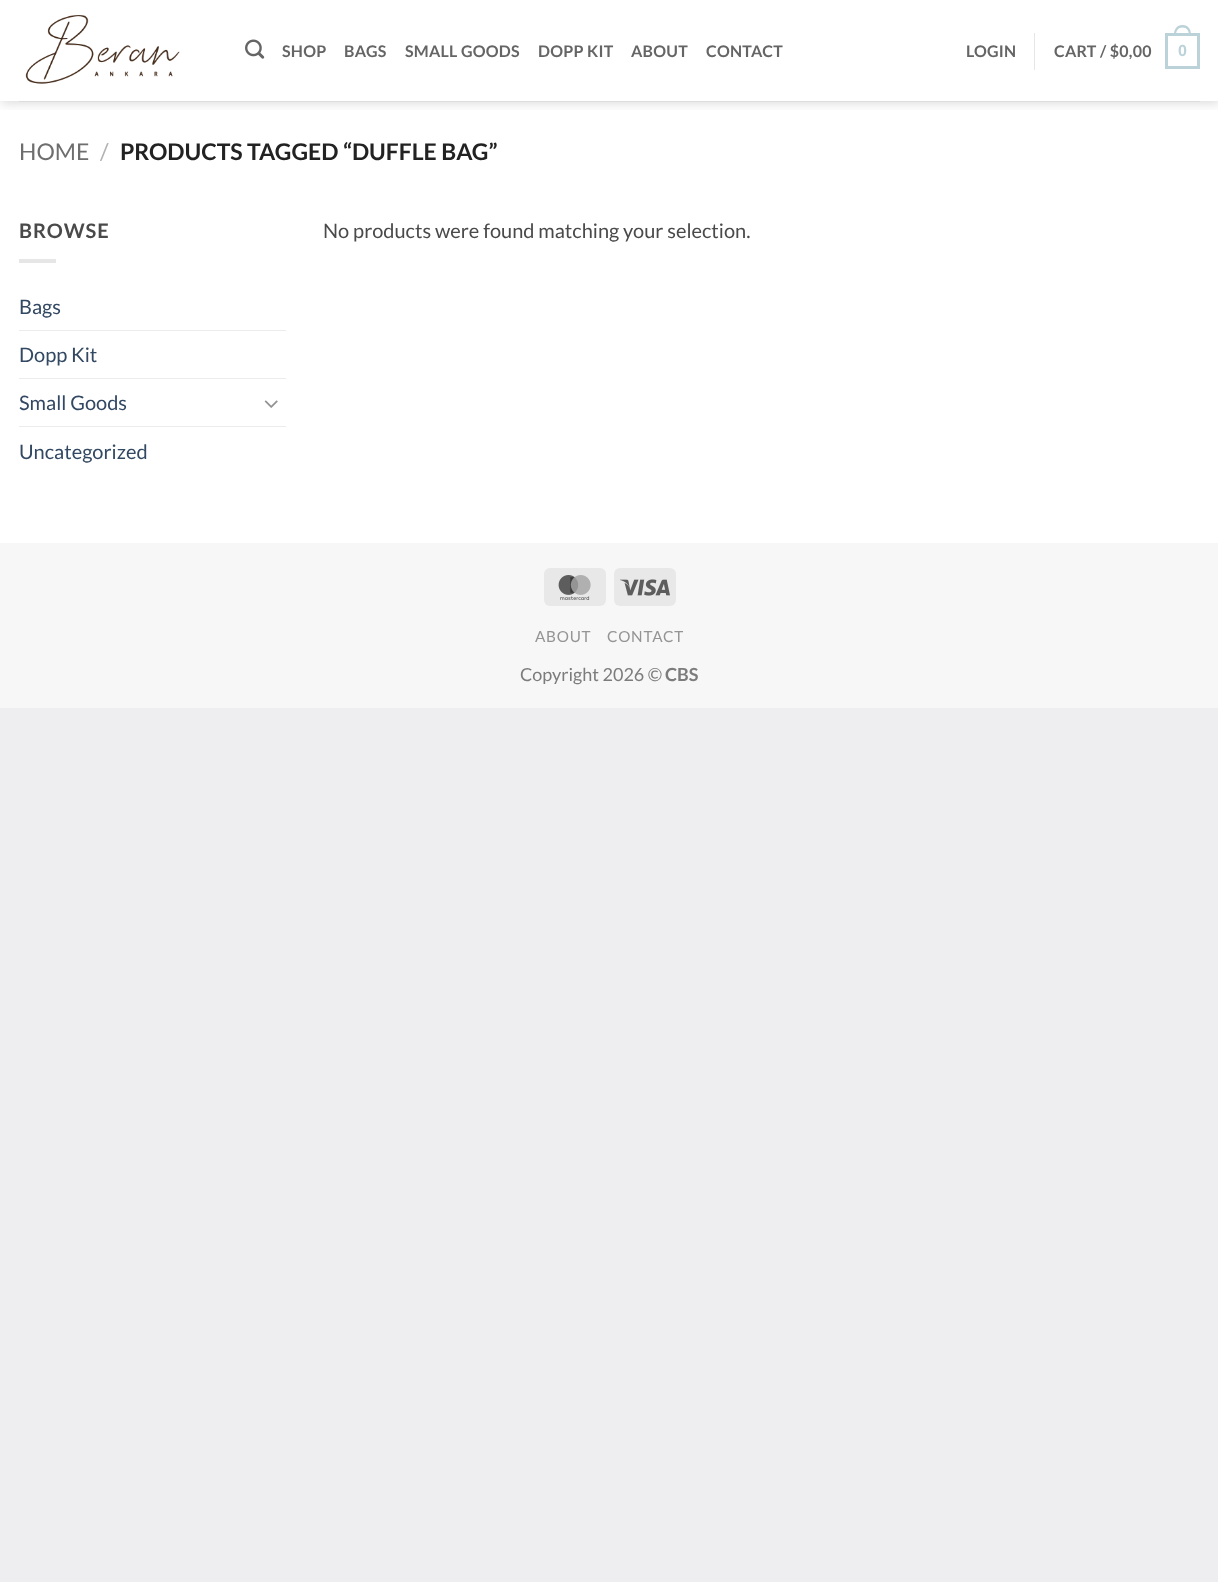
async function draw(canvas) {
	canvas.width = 1218;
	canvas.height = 1582;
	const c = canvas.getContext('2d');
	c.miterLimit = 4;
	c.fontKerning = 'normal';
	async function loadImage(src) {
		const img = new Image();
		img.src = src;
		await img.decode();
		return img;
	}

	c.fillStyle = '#eeeef0';
	c.fillRect(0, 0, 1218, 1582);
	c.fillStyle = '#fff';
	c.fillRect(0, 0, 1218, 543);
	c.save();
	c.beginPath();
	c.rect(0, 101, 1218, 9);
	c.clip();
	c.fillStyle = '#00000026';
	c.filter = 'blur(6px)';
	c.beginPath();
	c.rect(1, 1, 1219, 102);
	c.fill();
	c.filter = 'none';
	c.restore();
	c.drawImage(await loadImage('img1.png'), 25, 15, 155, 69);
	c.drawImage(await loadImage('img2.png'), 245, 39, 20, 20);
	c.letterSpacing = '0.25px';
	c.font = 'bold 16px Lato';
	c.fillStyle = '#656565';
	for (const [text, x, y] of [
		['SHOP', 282, 57],
		['BAGS', 344, 57],
		['SMALL GOODS', 405, 57],
		['DOPP KIT', 538, 57],
		['ABOUT', 631, 57],
		['CONTACT', 706, 57],
		['LOGIN', 966, 57],
	]) {
		c.fillText(text, x, y);
	}
	c.fillStyle = '#e6e6e6';
	c.fillRect(1034, 33, 1, 37);
	c.fillStyle = '#656565';
	c.fillText('CART / $0,00', 1054, 57);
	c.strokeStyle = '#bbd2d9';
	c.lineWidth = 3;
	c.strokeRect(1166.5, 34.5, 32, 33);
	c.fillStyle = '#bbd2d9';
	c.beginPath();
	c.moveTo(1182.5, 25);
	c.bezierCurveTo(1188.5, 25, 1191, 29.5, 1191, 35);
	c.lineTo(1174, 35);
	c.bezierCurveTo(1174, 29.5, 1176.5, 25, 1182.5, 25);
	c.closePath();
	c.moveTo(1182.5, 27.5);
	c.bezierCurveTo(1187, 27.5, 1189, 31, 1189, 35);
	c.lineTo(1176, 35);
	c.bezierCurveTo(1176, 31, 1178, 27.5, 1182.5, 27.5);
	c.closePath();
	c.fill('evenodd');
	c.font = 'bold 16px Liberation Sans';
	c.fillText('0', 1178, 56);
	c.fillStyle = '#ddd';
	c.fillRect(19, 101, 1181, 1);
	c.letterSpacing = '0px';
	c.font = '23px Lato';
	c.fillStyle = '#6e6e6e';
	c.fillText('HOME', 19, 160);
	c.fillStyle = '#b2b2b2';
	c.fillText('/', 100, 160);
	c.font = 'bold 23px Lato';
	c.fillStyle = '#222';
	c.fillText('PRODUCTS TAGGED “DUFFLE BAG”', 120, 160);
	c.letterSpacing = '1px';
	c.font = 'bold 20px Lato';
	c.fillStyle = '#4a4a4a';
	c.fillText('BROWSE', 19, 238);
	c.fillStyle = '#e6e6e6';
	c.fillRect(19, 259, 37, 4);
	c.letterSpacing = '0px';
	c.font = '20px Lato';
	c.fillStyle = '#334862';
	c.fillText('Bags', 19, 314);
	c.fillStyle = '#ececec';
	c.fillRect(19, 330, 267, 1);
	c.fillStyle = '#334862';
	c.fillText('Dopp Kit', 19, 362);
	c.fillStyle = '#ececec';
	c.fillRect(19, 378, 267, 1);
	c.fillStyle = '#334862';
	c.fillText('Small Goods', 19, 410);
	c.drawImage(await loadImage('img3.png'), 264, 400, 14, 8);
	c.fillStyle = '#ececec';
	c.fillRect(19, 426, 267, 1);
	c.fillStyle = '#334862';
	c.fillText('Uncategorized', 19, 459);
	c.fillStyle = '#4a4a4a';
	c.fillText('No products were found matching your selection.', 323, 238);
	c.fillStyle = '#f7f7f7';
	c.fillRect(0, 543, 1218, 165);
	c.fillStyle = '#e8e8e8';
	c.beginPath();
	c.roundRect(544, 568, 62, 38, 6);
	c.fill();
	c.drawImage(await loadImage('img4.png'), 558, 575, 33, 25);
	c.beginPath();
	c.roundRect(614, 568, 62, 38, 6);
	c.fill();
	c.drawImage(await loadImage('img5.png'), 620, 579, 50, 17);
	c.letterSpacing = '0.75px';
	c.font = '15.25px Lato';
	c.fillStyle = '#949494';
	c.fillText('ABOUT', 535, 642);
	c.fillText('CONTACT', 607, 642);
	c.letterSpacing = '0px';
	c.font = '18px Lato';
	c.fillStyle = '#7c7c7c';
	c.fillText('Copyright 2026 ©', 520, 681);
	c.font = 'bold 18px Lato';
	c.fillText('CBS', 665, 681);
}

draw(document.querySelector('canvas'));
